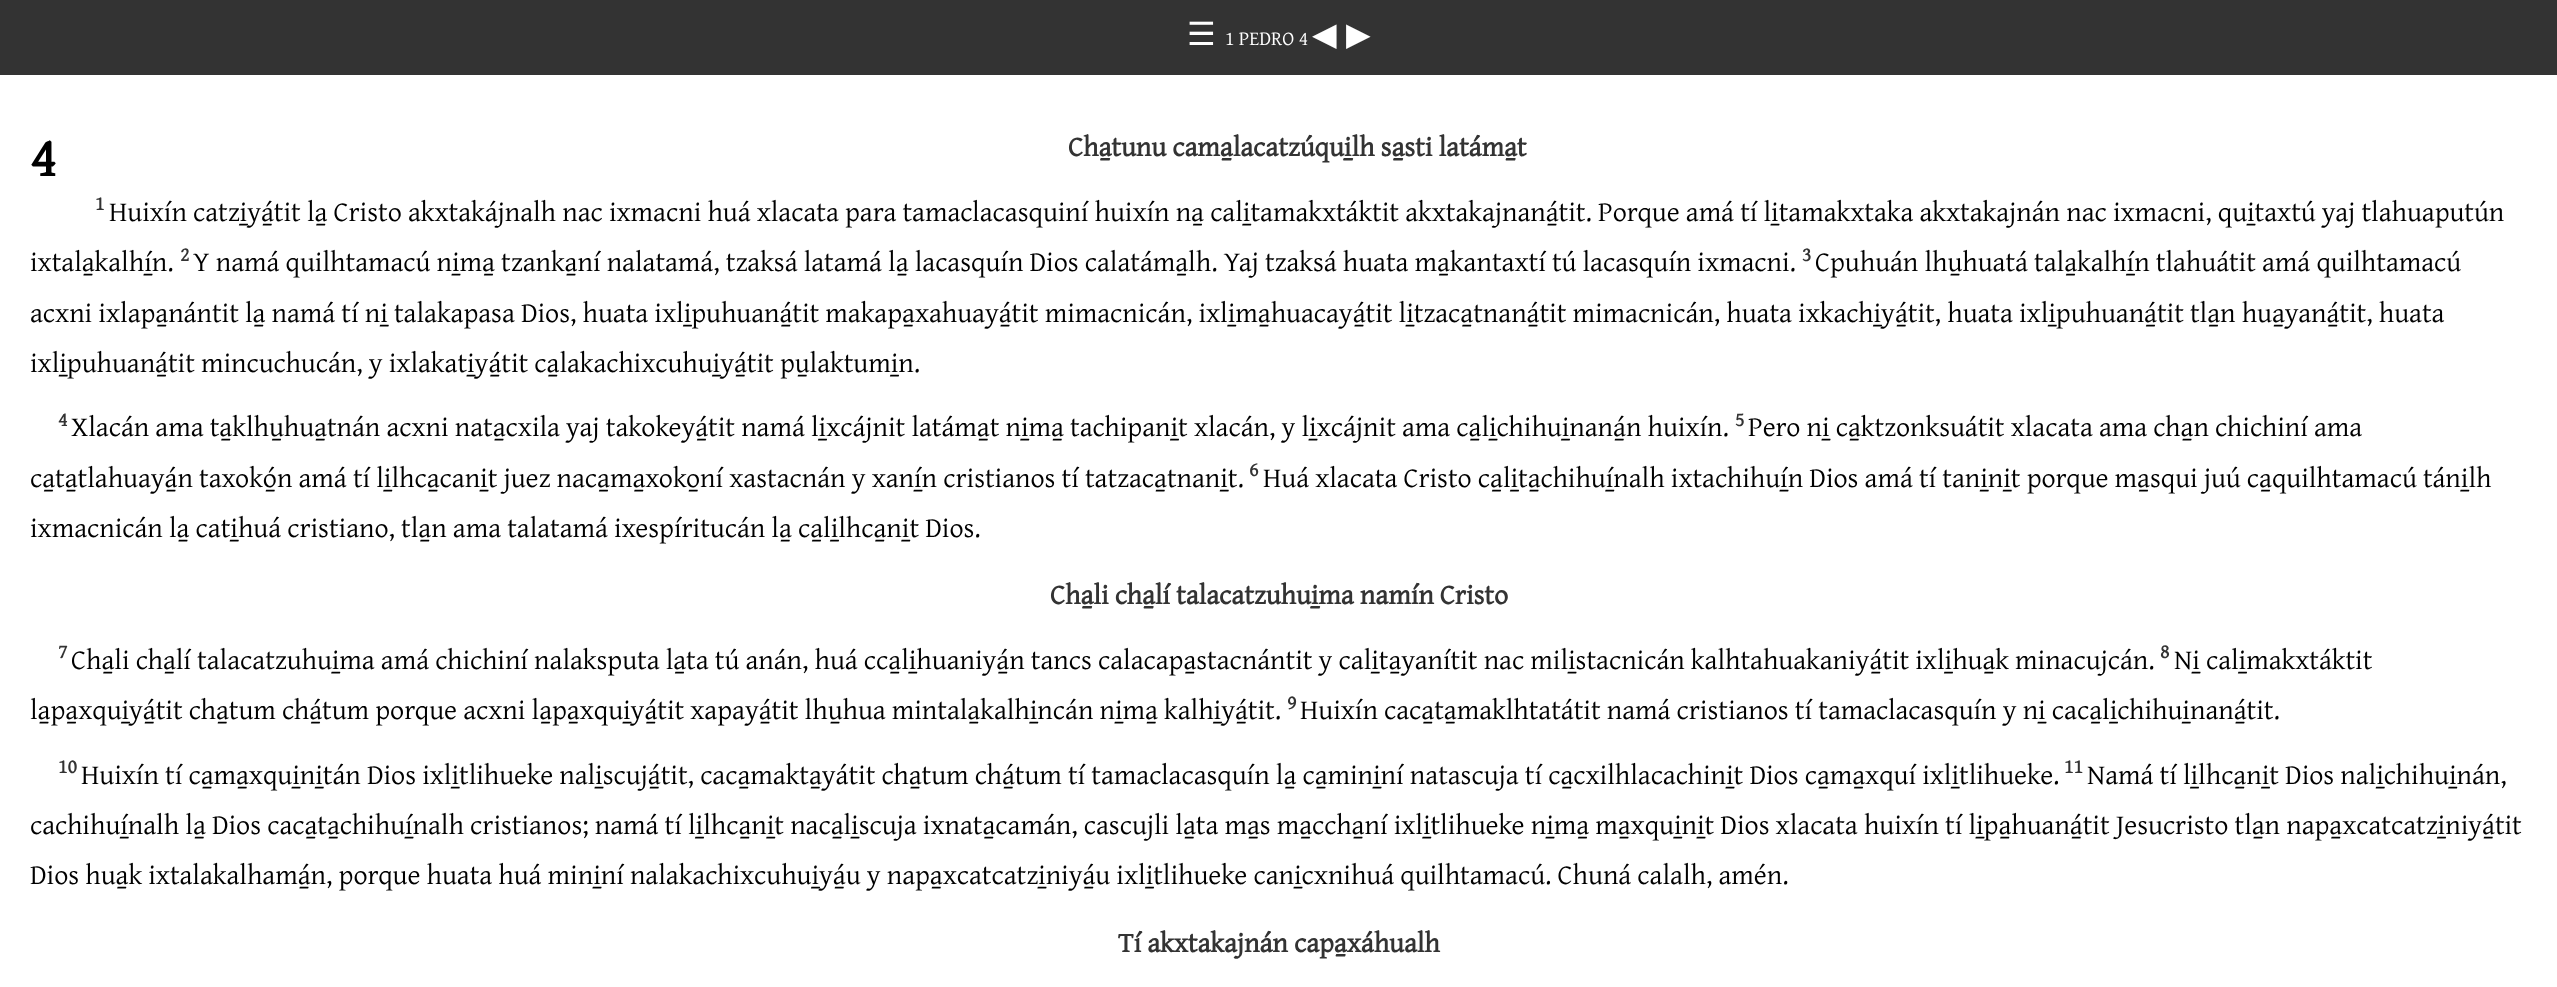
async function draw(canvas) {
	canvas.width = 2557;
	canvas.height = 987;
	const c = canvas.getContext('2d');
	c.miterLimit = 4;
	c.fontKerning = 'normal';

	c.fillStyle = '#fff';
	c.fillRect(0, 0, 2557, 987);
	c.fillStyle = '#333';
	c.fillRect(0, 0, 2557, 75);
	c.font = '32px DejaVu Sans';
	c.fillStyle = '#fff';
	c.fillText('☰', 1187, 45);
	c.font = '20px Gentium Plus';
	c.fillText('1 PEDRO 4', 1225, 45);
	c.font = '32px DejaVu Sans';
	c.fillText('◀', 1312, 45);
	c.fillText('▶', 1346, 45);
	c.font = 'bold 56px Gentium Plus';
	c.fillStyle = '#000';
	c.fillText('4', 30, 176);
	c.font = 'bold 28px Gentium Plus';
	c.fillStyle = '#333';
	c.fillText('Cha̱tunu cama̱lacatzúqui̱lh sa̱sti latáma̱t', 1068, 156);
	c.font = 'bold 20px Gentium Plus';
	c.fillText('1', 95, 210);
	c.font = '28px Gentium Plus';
	c.fillStyle = '#000';
	c.fillText('Huixín catzi̱yá̱tit la̱ Cristo akxtakájnalh nac ixmacni huá xlacata para tamaclacasquiní huixín na̱ cali̱tamakxtáktit akxtakajnaná̱tit. Porque amá tí li̱tamakxtaka akxtakajnán nac ixmacni, qui̱taxtú yaj tlahuaputún', 109, 221);
	c.fillText('ixtala̱kalhí̱n.', 30, 271);
	c.font = 'bold 20px Gentium Plus';
	c.fillStyle = '#333';
	c.fillText('2', 180, 261);
	c.font = '28px Gentium Plus';
	c.fillStyle = '#000';
	c.fillText('Y namá quilhtamacú ni̱ma̱ tzanka̱ní nalatamá, tzaksá latamá la̱ lacasquín Dios calatáma̱lh. Yaj tzaksá huata ma̱kantaxtí tú lacasquín ixmacni.', 193, 271);
	c.font = 'bold 20px Gentium Plus';
	c.fillStyle = '#333';
	c.fillText('3', 1802, 261);
	c.font = '28px Gentium Plus';
	c.fillStyle = '#000';
	for (const [text, x, y] of [
		['Cpuhuán lhu̱huatá tala̱kalhí̱n tlahuátit amá quilhtamacú', 1815, 271],
		['acxni ixlapa̱nántit la̱ namá tí ni̱ talakapasa Dios, huata ixli̱puhuaná̱tit makapa̱xahuayá̱tit mimacnicán, ixli̱ma̱huacayá̱tit li̱tzaca̱tnaná̱tit mimacnicán, huata ixkachi̱yá̱tit, huata ixli̱puhuaná̱tit tla̱n hua̱yaná̱tit, huata', 30, 322],
		['ixli̱puhuaná̱tit mincuchucán, y ixlakati̱yá̱tit ca̱lakachixcuhui̱yá̱tit pu̱laktumi̱n.', 30, 372],
	]) {
		c.fillText(text, x, y);
	}
	c.font = 'bold 20px Gentium Plus';
	c.fillStyle = '#333';
	c.fillText('4', 58, 426);
	c.font = '28px Gentium Plus';
	c.fillStyle = '#000';
	c.fillText('Xlacán ama ta̱klhu̱hua̱tnán acxni nata̱cxila yaj takokeyá̱tit namá li̱xcájnit latáma̱t ni̱ma̱ tachipani̱t xlacán, y li̱xcájnit ama ca̱li̱chihui̱naná̱n huixín.', 71, 436);
	c.font = 'bold 20px Gentium Plus';
	c.fillStyle = '#333';
	c.fillText('5', 1735, 426);
	c.font = '28px Gentium Plus';
	c.fillStyle = '#000';
	c.fillText('Pero ni̱ ca̱ktzonksuátit xlacata ama cha̱n chichiní ama', 1748, 436);
	c.fillText('ca̱ta̱tlahuayá̱n taxokó̱n amá tí li̱lhca̱cani̱t juez naca̱ma̱xoko̱ní xastacnán y xaní̱n cristianos tí tatzaca̱tnani̱t.', 30, 487);
	c.font = 'bold 20px Gentium Plus';
	c.fillStyle = '#333';
	c.fillText('6', 1249, 476);
	c.font = '28px Gentium Plus';
	c.fillStyle = '#000';
	c.fillText('Huá xlacata Cristo ca̱li̱ta̱chihuí̱nalh ixtachihuí̱n Dios amá tí tani̱ni̱t porque ma̱squi juú ca̱quilhtamacú táni̱lh', 1263, 487);
	c.fillText('ixmacnicán la̱ cati̱huá cristiano, tla̱n ama talatamá ixespíritucán la̱ ca̱li̱lhca̱ni̱t Dios.', 30, 537);
	c.font = 'bold 28px Gentium Plus';
	c.fillStyle = '#333';
	c.fillText('Cha̱li cha̱lí talacatzuhui̱ma namín Cristo', 1050, 604);
	c.font = 'bold 20px Gentium Plus';
	c.fillText('7', 58, 658);
	c.font = '28px Gentium Plus';
	c.fillStyle = '#000';
	c.fillText('Cha̱li cha̱lí talacatzuhui̱ma amá chichiní nalaksputa la̱ta tú anán, huá cca̱li̱huaniyá̱n tancs calacapa̱stacnántit y cali̱ta̱yanítit nac mili̱stacnicán kalhtahuakaniyá̱tit ixli̱hua̱k minacujcán.', 71, 669);
	c.font = 'bold 20px Gentium Plus';
	c.fillStyle = '#333';
	c.fillText('8', 2160, 658);
	c.font = '28px Gentium Plus';
	c.fillStyle = '#000';
	c.fillText('Ni̱ cali̱makxtáktit', 2174, 669);
	c.fillText('la̱pa̱xqui̱yá̱tit cha̱tum chá̱tum porque acxni la̱pa̱xqui̱yá̱tit xapayá̱tit lhu̱hua mintala̱kalhi̱ncán ni̱ma̱ kalhi̱yá̱tit.', 30, 719);
	c.font = 'bold 20px Gentium Plus';
	c.fillStyle = '#333';
	c.fillText('9', 1287, 709);
	c.font = '28px Gentium Plus';
	c.fillStyle = '#000';
	c.fillText('Huixín caca̱ta̱maklhtatátit namá cristianos tí tamaclacasquín y ni̱ caca̱li̱chihui̱naná̱tit.', 1300, 719);
	c.font = 'bold 20px Gentium Plus';
	c.fillStyle = '#333';
	c.fillText('10', 58, 773);
	c.font = '28px Gentium Plus';
	c.fillStyle = '#000';
	c.fillText('Huixín tí ca̱ma̱xqui̱ni̱tán Dios ixli̱tlihueke nali̱scujá̱tit, caca̱makta̱yátit cha̱tum chá̱tum tí tamaclacasquín la̱ ca̱mini̱ní natascuja tí ca̱cxilhlacachini̱t Dios ca̱ma̱xquí ixli̱tlihueke.', 81, 784);
	c.font = 'bold 20px Gentium Plus';
	c.fillStyle = '#333';
	c.fillText('11', 2064, 773);
	c.font = '28px Gentium Plus';
	c.fillStyle = '#000';
	for (const [text, x, y] of [
		['Namá tí li̱lhca̱ni̱t Dios nali̱chihui̱nán,', 2087, 784],
		['cachihuí̱nalh la̱ Dios caca̱ta̱chihuí̱nalh cristianos; namá tí li̱lhca̱ni̱t naca̱li̱scuja ixnata̱camán, cascujli la̱ta ma̱s ma̱ccha̱ní ixli̱tlihueke ni̱ma̱ ma̱xqui̱ni̱t Dios xlacata huixín tí li̱pa̱huaná̱tit Jesucristo tla̱n napa̱xcatcatzi̱niyá̱tit', 30, 834],
		['Dios hua̱k ixtalakalhamá̱n, porque huata huá mini̱ní nalakachixcuhui̱yá̱u y napa̱xcatcatzi̱niyá̱u ixli̱tlihueke cani̱cxnihuá quilhtamacú. Chuná calalh, amén.', 30, 884],
	]) {
		c.fillText(text, x, y);
	}
	c.font = 'bold 28px Gentium Plus';
	c.fillStyle = '#333';
	c.fillText('Tí akxtakajnán capa̱xáhualh', 1118, 952);
}

draw(document.querySelector('canvas'));
